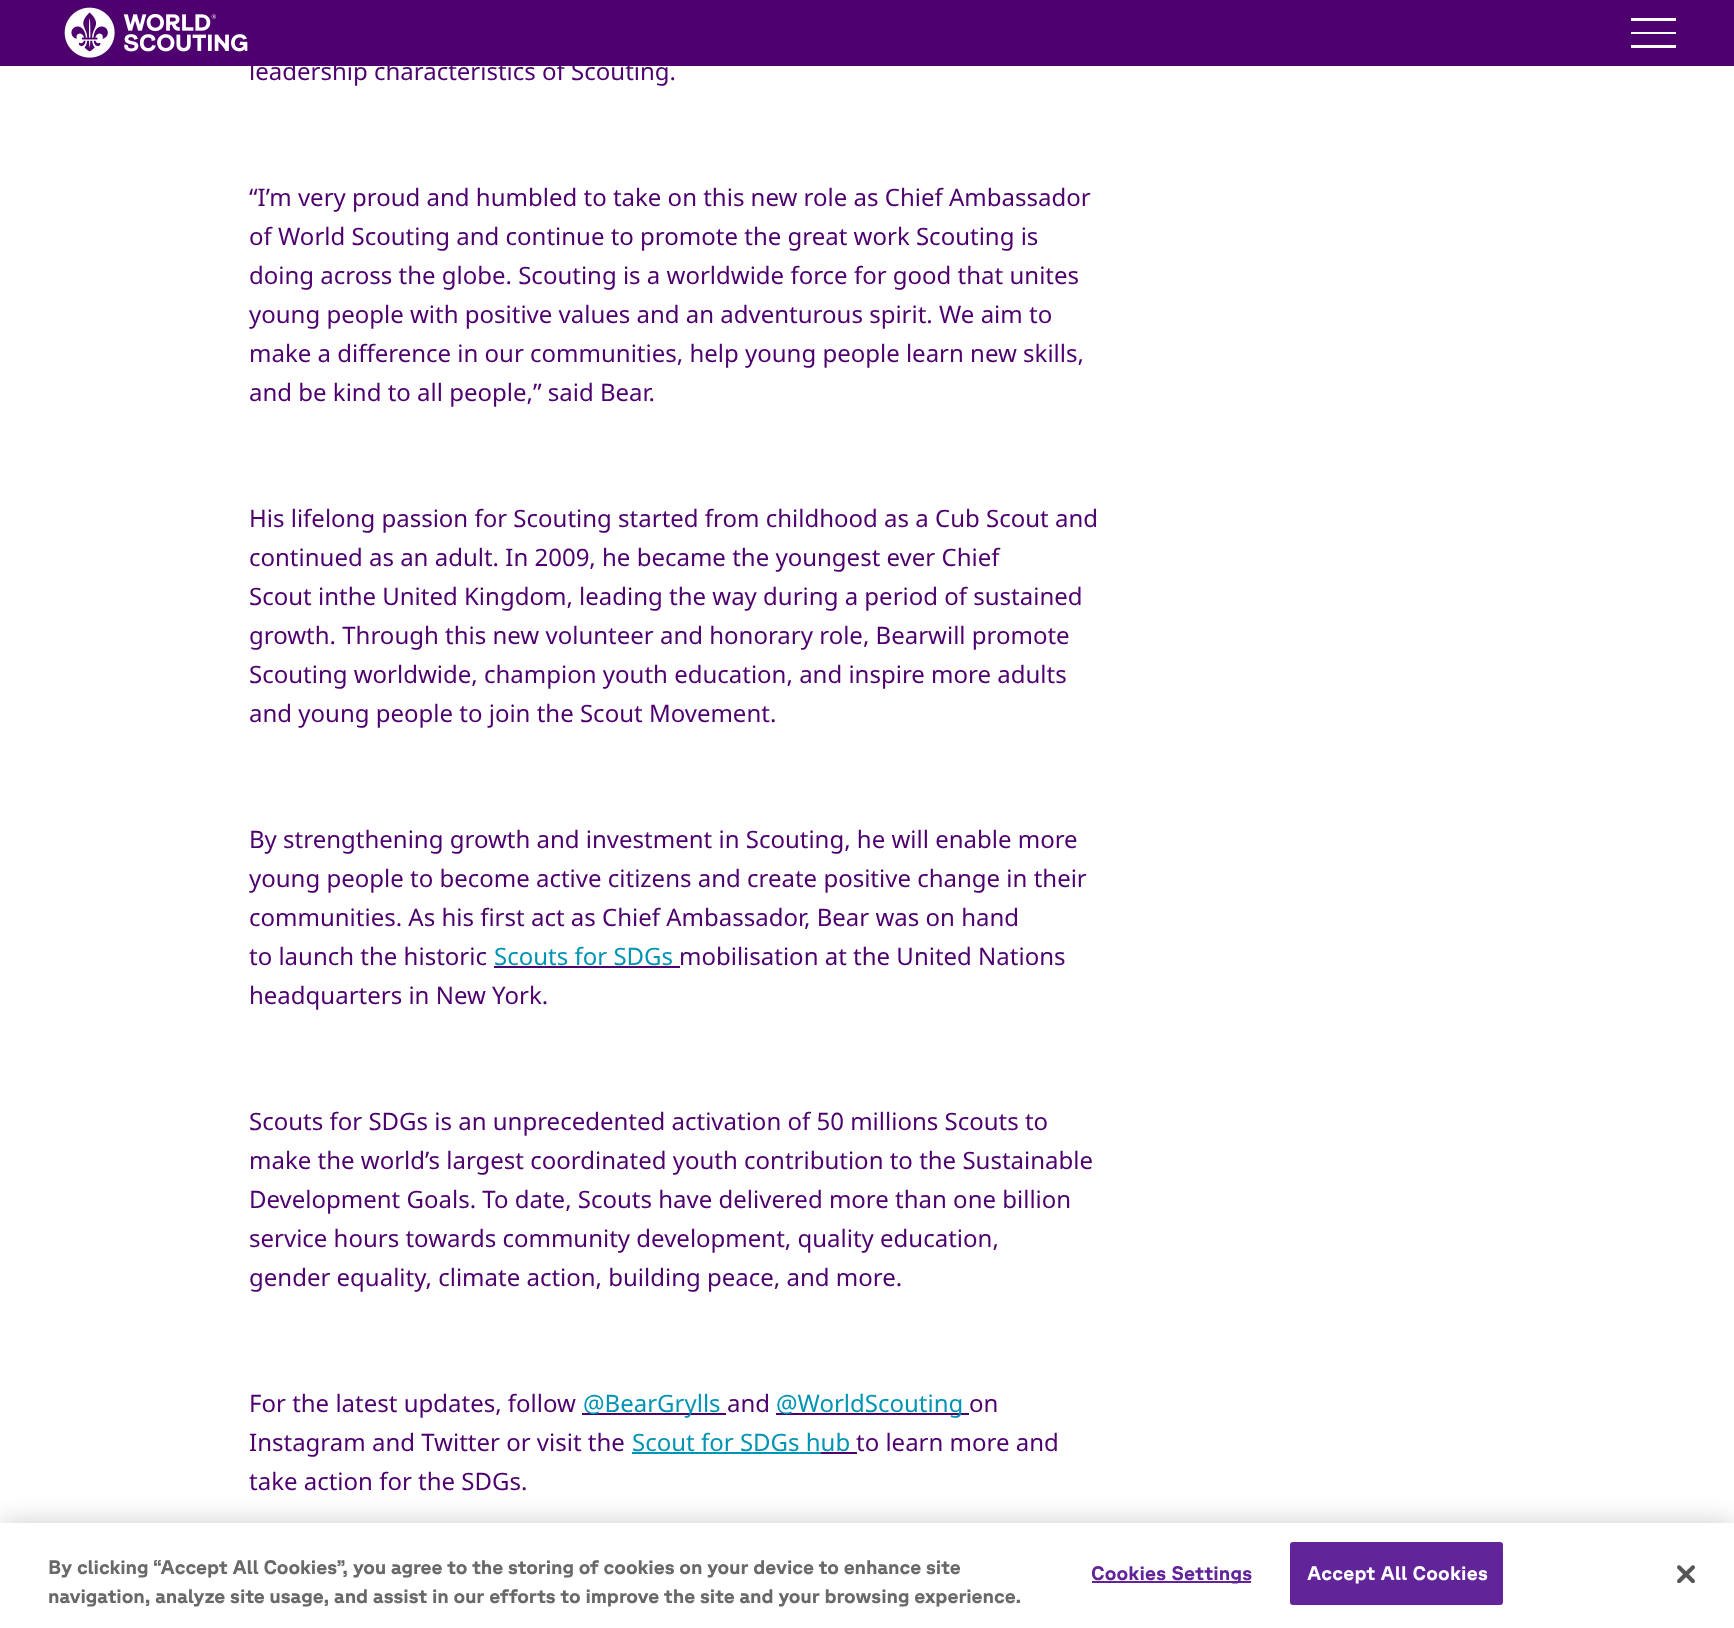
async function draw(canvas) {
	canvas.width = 1734;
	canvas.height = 1628;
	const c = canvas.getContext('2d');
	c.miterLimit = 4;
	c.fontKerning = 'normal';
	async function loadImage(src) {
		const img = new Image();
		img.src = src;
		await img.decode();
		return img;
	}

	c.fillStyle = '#fff';
	c.fillRect(0, 0, 1734, 1628);
	c.fillStyle = '#4d006e';
	c.fillRect(0, 0, 1734, 66);
	c.drawImage(await loadImage('img1.png'), 64, 7, 184, 51);
	c.save();
	c.beginPath();
	c.rect(1631, 18, 45, 30);
	c.clip();
	c.fillStyle = '#fff';
	c.beginPath();
	c.moveTo(1630, 18);
	c.lineTo(1676, 18);
	c.lineTo(1676, 21);
	c.lineTo(1630, 21);
	c.closePath();
	c.moveTo(1630, 32);
	c.lineTo(1676, 32);
	c.lineTo(1676, 34);
	c.lineTo(1630, 34);
	c.closePath();
	c.moveTo(1630, 45);
	c.lineTo(1676, 45);
	c.lineTo(1676, 48);
	c.lineTo(1630, 48);
	c.closePath();
	c.fill();
	c.restore();
	c.font = '24px Noto Sans';
	for (const [text, x, y] of [
		['leadership characteristics of Scouting.', 249, 80],
		['“I’m very proud and humbled to take on this new role as Chief Ambassador', 249, 206],
		['of World Scouting and continue to promote the great work Scouting is', 249, 245],
		['doing across the globe. Scouting is a worldwide force for good that unites', 249, 284],
		['young people with positive values and an adventurous spirit. We aim to', 249, 323],
		['make a difference in our communities, help young people learn new skills,', 249, 362],
		['and be kind to all people,” said Bear.', 249, 401],
		['His lifelong passion for Scouting started from childhood as a Cub Scout and', 249, 527],
		['continued as an adult. In 2009, he became the youngest ever Chief', 249, 566],
		['Scout inthe United Kingdom, leading the way during a period of sustained', 249, 605],
		['growth. Through this new volunteer and honorary role, Bearwill promote', 249, 644],
		['Scouting worldwide, champion youth education, and inspire more adults', 249, 683],
		['and young people to join the Scout Movement.', 249, 722],
		['By strengthening growth and investment in Scouting, he will enable more', 249, 848],
		['young people to become active citizens and create positive change in their', 249, 887],
		['communities. As his first act as Chief Ambassador, Bear was on hand', 249, 926],
		['to launch the historic', 249, 965],
	]) {
		c.fillText(text, x, y);
	}
	c.fillStyle = '#0094b4';
	c.fillText('Scouts for SDGs', 494, 965);
	c.fillStyle = '#4d006e';
	c.fillRect(494, 966, 186, 2);
	for (const [text, x, y] of [
		['mobilisation at the United Nations', 679, 965],
		['headquarters in New York.', 249, 1004],
		['Scouts for SDGs is an unprecedented activation of 50 millions Scouts to', 249, 1130],
		['make the world’s largest coordinated youth contribution to the Sustainable', 249, 1169],
		['Development Goals. To date, Scouts have delivered more than one billion', 249, 1208],
		['service hours towards community development, quality education,', 249, 1247],
		['gender equality, climate action, building peace, and more.', 249, 1286],
		['For the latest updates, follow', 249, 1412],
	]) {
		c.fillText(text, x, y);
	}
	c.fillRect(582, 1413, 144, 2);
	c.fillStyle = '#0094b4';
	c.fillText('@BearGrylls', 583, 1412);
	c.fillStyle = '#4d006e';
	c.fillText('and', 727, 1412);
	c.fillRect(776, 1413, 193, 2);
	c.fillStyle = '#0094b4';
	c.fillText('@WorldScouting', 776, 1412);
	c.fillStyle = '#4d006e';
	c.fillText('on', 969, 1412);
	c.fillText('Instagram and Twitter or visit the', 249, 1451);
	c.fillStyle = '#0094b4';
	c.fillText('Scout for SDGs hub', 632, 1451);
	c.fillRect(632, 1452, 189, 2);
	c.fillStyle = '#4d006e';
	c.fillText('to learn more and', 856, 1451);
	c.fillRect(821, 1452, 36, 2);
	c.fillText('take action for the SDGs.', 249, 1490);
	c.fillStyle = '#00000033';
	c.filter = 'blur(13.5px)';
	c.beginPath();
	c.rect(0, 1523, 1734, 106);
	c.fill();
	c.filter = 'none';
	c.fillStyle = '#fff';
	c.fillRect(0, 1523, 1734, 105);
	c.font = 'bold 19.5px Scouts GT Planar';
	c.fillStyle = '#696969';
	c.fillText('By clicking “Accept All Cookies”, you agree to the storing of cookies on your device to enhance site', 48, 1574);
	c.fillText('navigation, analyze site usage, and assist in our efforts to improve the site and your browsing experience.', 48, 1603);
	c.fillStyle = '#622599';
	c.fillRect(1092, 1581, 159, 2);
	c.letterSpacing = '0.25px';
	c.fillText('Cookies Settings', 1091, 1580);
	c.beginPath();
	c.roundRect(1291, 1543, 211, 61, 2);
	c.fill();
	c.strokeStyle = '#622599';
	c.lineWidth = 2;
	c.stroke();
	c.fillStyle = '#fff';
	c.fillText('Accept All Cookies', 1307, 1580);
	c.drawImage(await loadImage('img2.png'), 1677, 1565, 18, 18);
}

draw(document.querySelector('canvas'));
